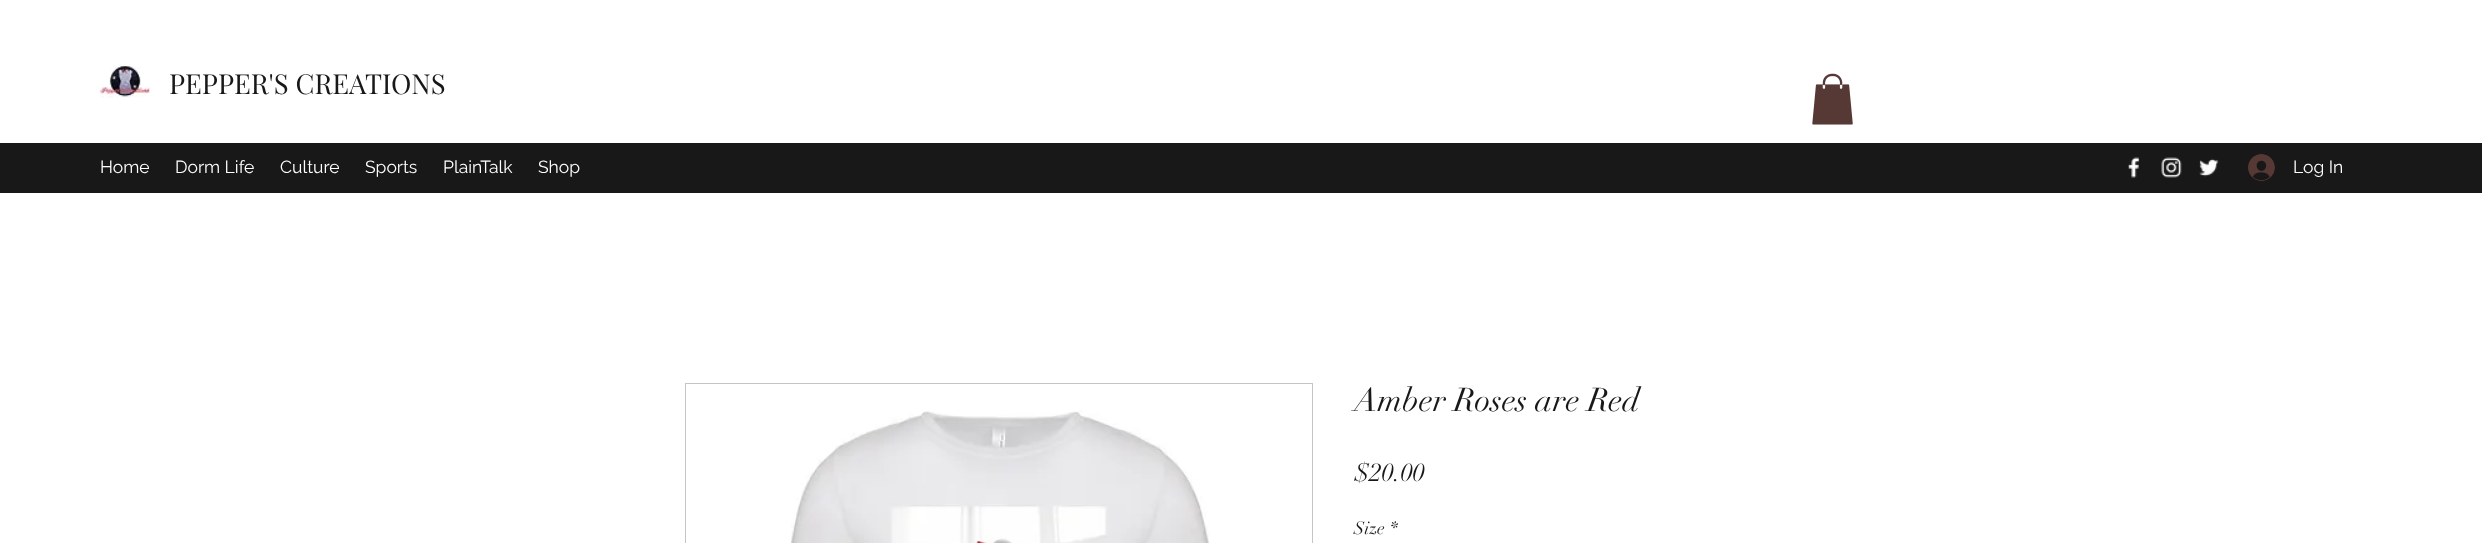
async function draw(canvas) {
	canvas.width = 2482;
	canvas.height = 543;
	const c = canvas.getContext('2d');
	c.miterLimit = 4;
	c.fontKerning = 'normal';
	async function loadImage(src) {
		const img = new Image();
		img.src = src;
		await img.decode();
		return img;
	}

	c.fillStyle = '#fff';
	c.fillRect(0, 0, 2482, 543);
	c.drawImage(await loadImage('img1.png'), 100, 64, 50, 34);
	c.font = '27.5px Playfair Display';
	c.fillStyle = '#181818';
	c.fillText('PEPPER\'S CREATIONS', 169, 94);
	c.drawImage(await loadImage('img2.png'), 1812, 73, 41, 52);
	c.fillRect(0, 143, 2482, 50);
	c.font = '17.5px Raleway';
	c.fillStyle = '#fff';
	for (const [text, x, y] of [
		['Home', 100, 173],
		['Dorm Life', 175, 173],
		['Culture', 280, 173],
		['Sports', 365, 173],
		['PlainTalk', 443, 173],
		['Shop', 538, 173],
	]) {
		c.fillText(text, x, y);
	}
	c.drawImage(await loadImage('img3.png'), 2128, 157, 12, 21);
	c.drawImage(await loadImage('img4.png'), 2161, 157, 21, 21);
	c.drawImage(await loadImage('img5.png'), 2199, 158, 20, 19);
	c.drawImage(await loadImage('img6.png'), 2248, 154, 27, 27);
	c.fillText('Log In', 2293, 173);
	c.strokeStyle = '#c5c5c5';
	c.strokeRect(685.5, 383.5, 627, 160);
	c.drawImage(await loadImage('img7.png'), 791, 410, 419, 133);
	c.font = '32.5px didot';
	c.fillStyle = '#181818';
	c.fillText('Amber Roses are Red', 1354, 411);
	c.font = '25px didot';
	c.fillText('$20.00', 1354, 481);
	c.font = '17.5px didot';
	c.fillText('Size', 1354, 534);
	c.fillText('*', 1390, 534);
}

draw(document.querySelector('canvas'));
